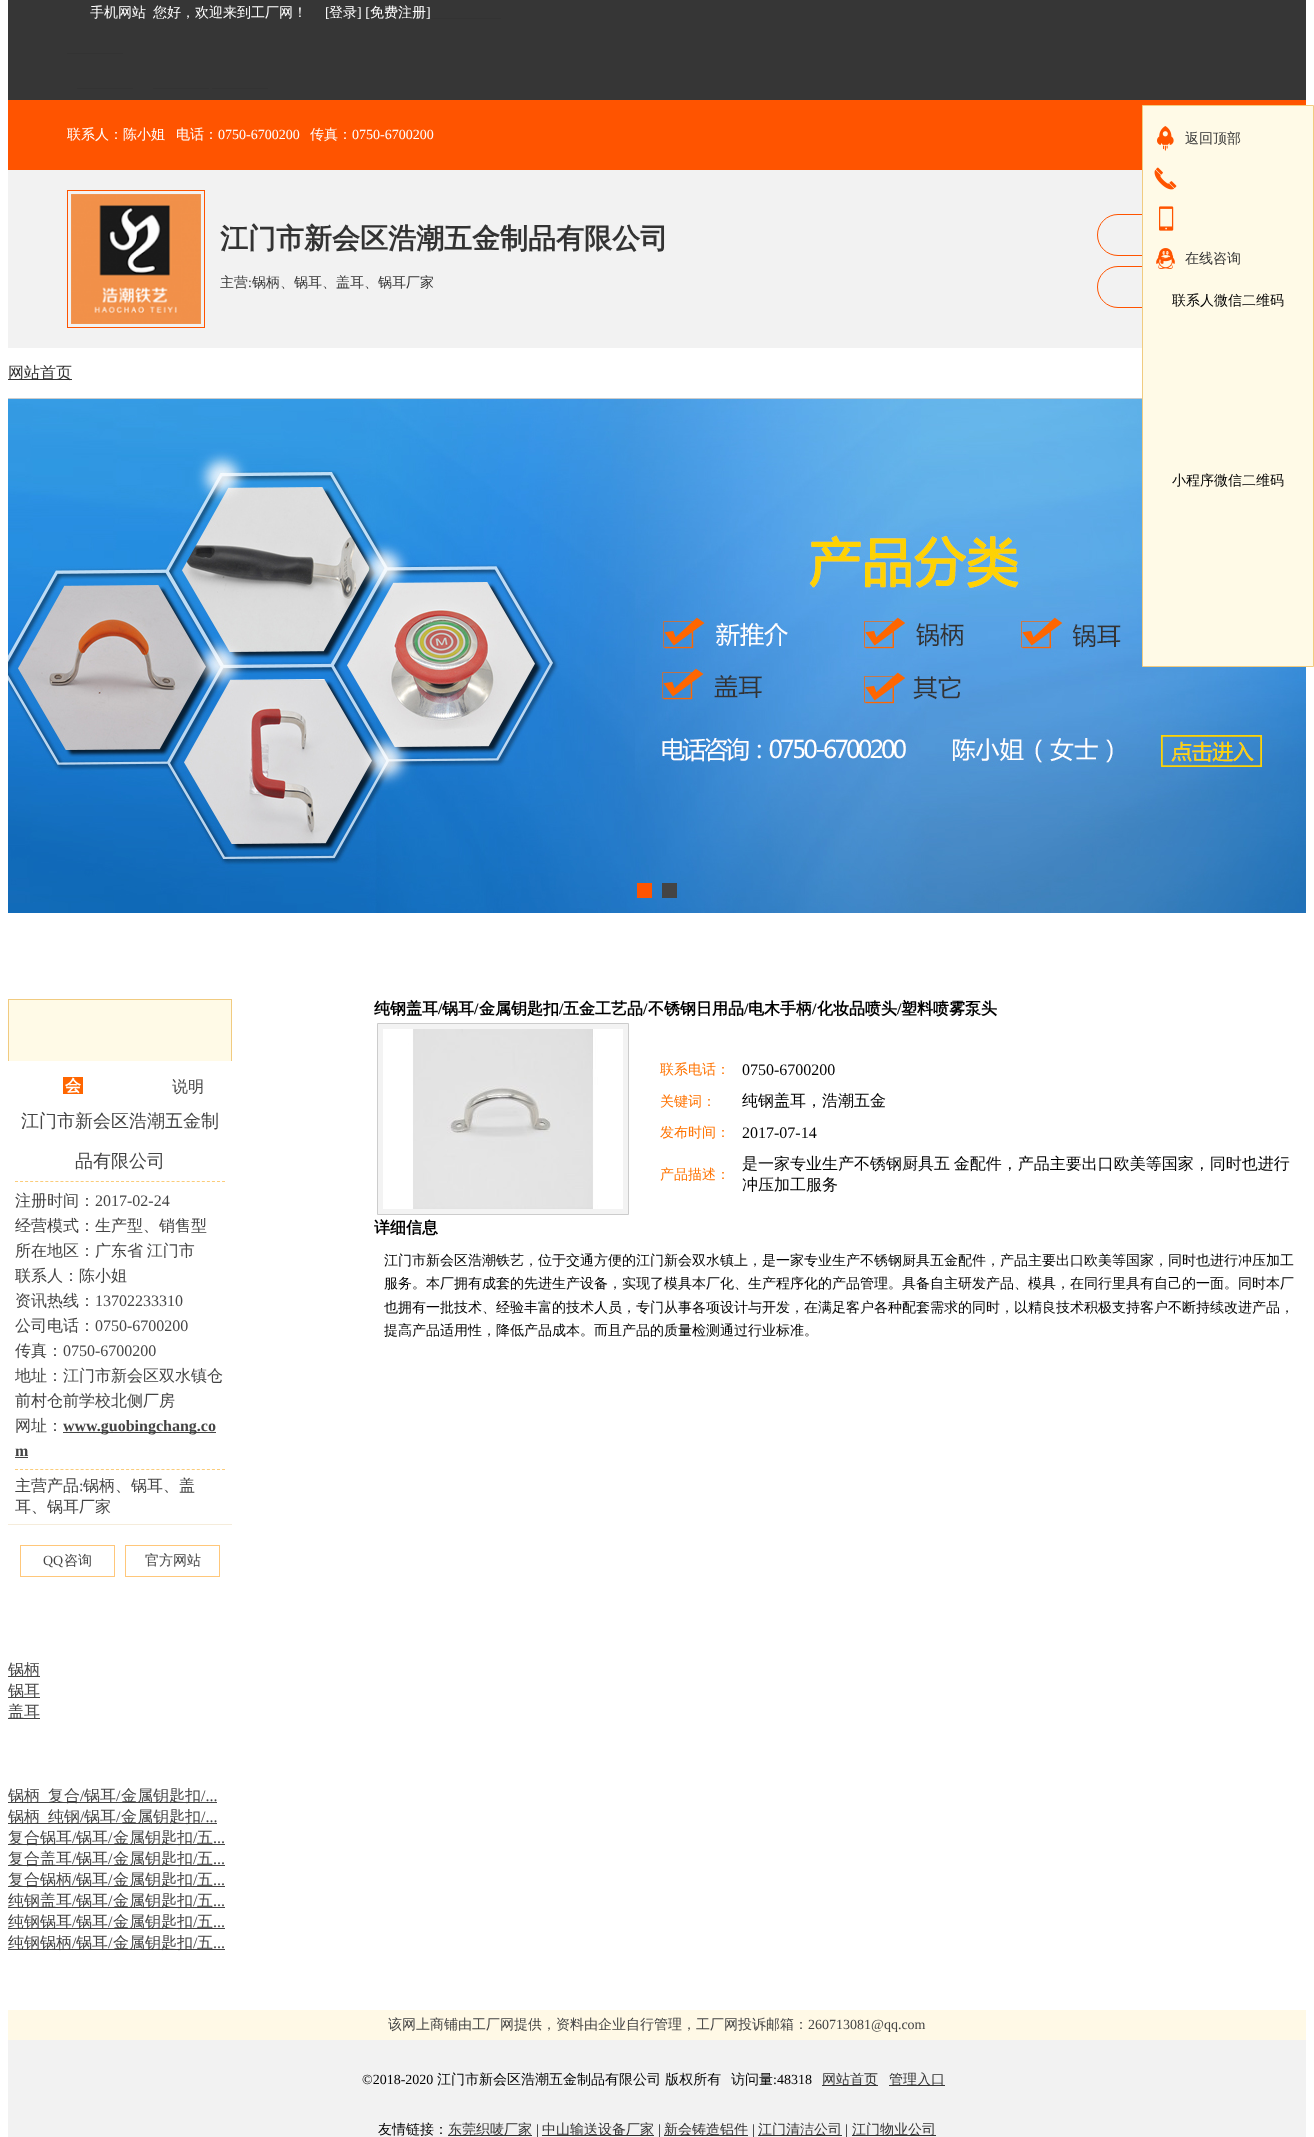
async function draw(canvas) {
	canvas.width = 1314;
	canvas.height = 2137;
	const c = canvas.getContext('2d');
	c.miterLimit = 4;
	c.fontKerning = 'normal';
	async function loadImage(src) {
		const img = new Image();
		img.src = src;
		await img.decode();
		return img;
	}

	c.fillStyle = '#fff';
	c.fillRect(0, 0, 1314, 2137);
	c.fillStyle = '#363636';
	c.fillRect(8, 0, 1298, 100);
	c.font = '500 14px WenQuanYi Zen Hei';
	c.fillStyle = '#fff';
	c.fillText('手机网站', 90, 17);
	c.fillText('您好，欢迎来到工厂网！', 153, 17);
	c.font = '14px Liberation Serif';
	c.fillText('[', 325, 17);
	c.font = '500 14px WenQuanYi Zen Hei';
	c.fillText('登录', 329, 17);
	c.font = '14px Liberation Serif';
	c.fillText('] [', 357, 17);
	c.font = '500 14px WenQuanYi Zen Hei';
	c.fillText('免费注册', 370, 17);
	c.font = '14px Liberation Serif';
	c.fillText(']', 426, 17);
	for (const [x, y, w, h, color] of [
		[431, 18, 70, 1, '#333'],
		[67, 53, 56, 1, '#333'],
		[77, 88, 56, 1, '#333'],
		[153, 88, 56, 1, '#333'],
		[212, 88, 56, 1, '#333'],
		[8, 100, 1298, 70, '#ff5400'],
	]) {
		c.fillStyle = color;
		c.fillRect(x, y, w, h);
	}
	c.font = '500 14px WenQuanYi Zen Hei';
	c.fillStyle = '#fff';
	c.fillText('联系人：陈小姐', 67, 139);
	c.fillText('电话：', 176, 139);
	c.font = '14px Liberation Serif';
	c.fillText('0750-6700200', 218, 139);
	c.font = '500 14px WenQuanYi Zen Hei';
	c.fillText('传真：', 310, 139);
	c.font = '14px Liberation Serif';
	c.fillText('0750-6700200', 352, 139);
	c.fillStyle = '#f2f2f2';
	c.fillRect(8, 170, 1134, 178);
	c.beginPath();
	c.roundRect(1097.5, 214.5, 149, 41, 20.5);
	c.strokeStyle = '#ff5400';
	c.stroke();
	c.beginPath();
	c.roundRect(1097.5, 266.5, 149, 41, 20.5);
	c.stroke();
	c.drawImage(await loadImage('img6.png'), 8, 399, 1298, 514);
	c.fillStyle = '#fffae7';
	c.beginPath();
	c.rect(1142.5, 105.5, 171, 561);
	c.fill();
	c.strokeStyle = '#f1cb80';
	c.stroke();
	c.drawImage(await loadImage('img1.png'), 1157, 126, 17, 25);
	c.font = '500 14px WenQuanYi Zen Hei';
	c.fillStyle = '#333';
	c.fillText('返回顶部', 1185, 143);
	c.drawImage(await loadImage('img2.png'), 1154, 167, 23, 23);
	c.drawImage(await loadImage('img3.png'), 1159, 206, 15, 25);
	c.drawImage(await loadImage('img4.png'), 1156, 248, 19, 21);
	c.fillText('在线咨询', 1185, 263);
	c.fillStyle = '#000';
	c.fillText('联系人微信二维码', 1172, 305);
	c.fillText('小程序微信二维码', 1172, 485);
	c.strokeStyle = '#ff5400';
	c.strokeRect(67.5, 190.5, 137, 137);
	c.drawImage(await loadImage('img5.png'), 71, 194, 130, 130);
	c.font = 'bold 28px WenQuanYi Zen Hei';
	c.fillStyle = '#333';
	c.fillText('江门市新会区浩潮五金制品有限公司', 220, 248);
	c.font = '500 14px WenQuanYi Zen Hei';
	c.fillText('主营', 220, 287);
	c.font = '14px Liberation Serif';
	c.fillText(':', 248, 287);
	c.font = '500 14px WenQuanYi Zen Hei';
	c.fillText('锅柄、锅耳、盖耳、锅耳厂家', 252, 287);
	c.fillStyle = '#ccc';
	c.fillRect(8, 398, 1134, 1);
	c.fillStyle = '#333';
	c.fillRect(8, 379, 64, 1);
	c.font = '500 16px WenQuanYi Zen Hei';
	c.fillText('网站首页', 8, 378);
	for (const [x, y, w, h, color] of [
		[637, 883, 15, 15, '#ff5400'],
		[662, 883, 15, 15, '#444'],
		[9, 1000, 222, 61, '#fffae7'],
		[8, 999, 224, 1, '#f1cb80'],
		[231, 999, 1, 62, '#f1cb80'],
		[8, 999, 1, 62, '#f1cb80'],
		[63, 1077, 20, 17, '#f60'],
	]) {
		c.fillStyle = color;
		c.fillRect(x, y, w, h);
	}
	c.font = 'bold 16px WenQuanYi Zen Hei';
	c.fillStyle = '#fff';
	c.fillText('会', 65, 1091);
	c.font = '500 16px WenQuanYi Zen Hei';
	c.fillStyle = '#444';
	c.fillText('说明', 172, 1092);
	c.beginPath();
	c.moveTo(15, 1181.5);
	c.lineTo(225, 1181.5);
	c.strokeStyle = '#fbcc7a';
	c.setLineDash([3, 2.05]);
	c.stroke();
	c.font = '500 18px WenQuanYi Zen Hei';
	c.fillText('江门市新会区浩潮五金制', 21, 1127);
	c.fillText('品有限公司', 75, 1167);
	c.beginPath();
	c.moveTo(15, 1469.5);
	c.lineTo(225, 1469.5);
	c.stroke();
	c.font = '500 16px WenQuanYi Zen Hei';
	c.fillText('注册时间：', 15, 1206);
	c.font = '16px Liberation Serif';
	c.fillText('2017-02-24', 95, 1206);
	c.font = '500 16px WenQuanYi Zen Hei';
	c.fillText('经营模式：生产型、销售型', 15, 1231);
	c.wordSpacing = '-1px';
	c.fillText('所在地区：广东省 江门市', 15, 1256);
	c.wordSpacing = '0px';
	c.fillText('联系人：陈小姐', 15, 1281);
	c.fillText('资讯热线：', 15, 1306);
	c.font = '16px Liberation Serif';
	c.fillText('13702233310', 95, 1306);
	c.font = '500 16px WenQuanYi Zen Hei';
	c.fillText('公司电话：', 15, 1331);
	c.font = '16px Liberation Serif';
	c.fillText('0750-6700200', 95, 1331);
	c.font = '500 16px WenQuanYi Zen Hei';
	c.fillText('传真：', 15, 1356);
	c.font = '16px Liberation Serif';
	c.fillText('0750-6700200', 63, 1356);
	c.font = '500 16px WenQuanYi Zen Hei';
	for (const [text, x, y] of [
		['地址：江门市新会区双水镇仓', 15, 1381],
		['前村仓前学校北侧厂房', 15, 1406],
		['网址：', 15, 1431],
	]) {
		c.fillText(text, x, y);
	}
	c.fillRect(63, 1432, 153, 1);
	c.font = 'bold 16px Liberation Serif';
	c.fillText('www.guobingchang.co', 63, 1431);
	c.fillText('m', 15, 1456);
	c.fillRect(15, 1457, 13, 1);
	c.font = '500 16px WenQuanYi Zen Hei';
	c.fillText('主营产品', 15, 1491);
	c.font = '16px Liberation Serif';
	c.fillText(':', 79, 1491);
	c.font = '500 16px WenQuanYi Zen Hei';
	c.fillText('锅柄、锅耳、盖', 83, 1491);
	c.fillText('耳、锅耳厂家', 15, 1512);
	c.fillStyle = '#f5ecdb';
	c.fillRect(8, 1524, 224, 1);
	c.strokeStyle = '#ffc77a';
	c.setLineDash([]);
	c.strokeRect(20.5, 1545.5, 94, 31);
	c.font = '14px Liberation Serif';
	c.fillStyle = '#444';
	c.fillText('QQ', 43, 1565);
	c.font = '500 14px WenQuanYi Zen Hei';
	c.fillText('咨询', 64, 1565);
	c.strokeRect(125.5, 1545.5, 94, 31);
	c.fillText('官方网站', 145, 1565);
	c.fillRect(8, 1676, 32, 1);
	c.font = '500 16px WenQuanYi Zen Hei';
	c.fillText('锅柄', 8, 1675);
	c.fillRect(8, 1697, 32, 1);
	c.fillText('锅耳', 8, 1696);
	c.fillRect(8, 1718, 32, 1);
	c.fillText('盖耳', 8, 1717);
	c.fillRect(8, 1802, 209, 1);
	c.fillText('锅柄', 8, 1801);
	c.fillText('复合', 48, 1801);
	c.font = '16px Liberation Serif';
	c.fillText('/', 80, 1801);
	c.font = '500 16px WenQuanYi Zen Hei';
	c.fillText('锅耳', 84, 1801);
	c.font = '16px Liberation Serif';
	c.fillText('/', 116, 1801);
	c.font = '500 16px WenQuanYi Zen Hei';
	c.fillText('金属钥匙扣', 121, 1801);
	c.font = '16px Liberation Serif';
	c.fillText('/...', 201, 1801);
	c.fillRect(8, 1823, 209, 1);
	c.font = '500 16px WenQuanYi Zen Hei';
	c.fillText('锅柄', 8, 1822);
	c.fillText('纯钢', 48, 1822);
	c.font = '16px Liberation Serif';
	c.fillText('/', 80, 1822);
	c.font = '500 16px WenQuanYi Zen Hei';
	c.fillText('锅耳', 84, 1822);
	c.font = '16px Liberation Serif';
	c.fillText('/', 116, 1822);
	c.font = '500 16px WenQuanYi Zen Hei';
	c.fillText('金属钥匙扣', 121, 1822);
	c.font = '16px Liberation Serif';
	c.fillText('/...', 201, 1822);
	c.fillRect(8, 1844, 217, 1);
	c.font = '500 16px WenQuanYi Zen Hei';
	c.fillText('复合锅耳', 8, 1843);
	c.font = '16px Liberation Serif';
	c.fillText('/', 72, 1843);
	c.font = '500 16px WenQuanYi Zen Hei';
	c.fillText('锅耳', 76, 1843);
	c.font = '16px Liberation Serif';
	c.fillText('/', 108, 1843);
	c.font = '500 16px WenQuanYi Zen Hei';
	c.fillText('金属钥匙扣', 113, 1843);
	c.font = '16px Liberation Serif';
	c.fillText('/', 193, 1843);
	c.font = '500 16px WenQuanYi Zen Hei';
	c.fillText('五', 197, 1843);
	c.font = '16px Liberation Serif';
	c.fillText('...', 213, 1843);
	c.fillRect(8, 1865, 217, 1);
	c.font = '500 16px WenQuanYi Zen Hei';
	c.fillText('复合盖耳', 8, 1864);
	c.font = '16px Liberation Serif';
	c.fillText('/', 72, 1864);
	c.font = '500 16px WenQuanYi Zen Hei';
	c.fillText('锅耳', 76, 1864);
	c.font = '16px Liberation Serif';
	c.fillText('/', 108, 1864);
	c.font = '500 16px WenQuanYi Zen Hei';
	c.fillText('金属钥匙扣', 113, 1864);
	c.font = '16px Liberation Serif';
	c.fillText('/', 193, 1864);
	c.font = '500 16px WenQuanYi Zen Hei';
	c.fillText('五', 197, 1864);
	c.font = '16px Liberation Serif';
	c.fillText('...', 213, 1864);
	c.fillRect(8, 1886, 217, 1);
	c.font = '500 16px WenQuanYi Zen Hei';
	c.fillText('复合锅柄', 8, 1885);
	c.font = '16px Liberation Serif';
	c.fillText('/', 72, 1885);
	c.font = '500 16px WenQuanYi Zen Hei';
	c.fillText('锅耳', 76, 1885);
	c.font = '16px Liberation Serif';
	c.fillText('/', 108, 1885);
	c.font = '500 16px WenQuanYi Zen Hei';
	c.fillText('金属钥匙扣', 113, 1885);
	c.font = '16px Liberation Serif';
	c.fillText('/', 193, 1885);
	c.font = '500 16px WenQuanYi Zen Hei';
	c.fillText('五', 197, 1885);
	c.font = '16px Liberation Serif';
	c.fillText('...', 213, 1885);
	c.fillRect(8, 1907, 217, 1);
	c.font = '500 16px WenQuanYi Zen Hei';
	c.fillText('纯钢盖耳', 8, 1906);
	c.font = '16px Liberation Serif';
	c.fillText('/', 72, 1906);
	c.font = '500 16px WenQuanYi Zen Hei';
	c.fillText('锅耳', 76, 1906);
	c.font = '16px Liberation Serif';
	c.fillText('/', 108, 1906);
	c.font = '500 16px WenQuanYi Zen Hei';
	c.fillText('金属钥匙扣', 113, 1906);
	c.font = '16px Liberation Serif';
	c.fillText('/', 193, 1906);
	c.font = '500 16px WenQuanYi Zen Hei';
	c.fillText('五', 197, 1906);
	c.font = '16px Liberation Serif';
	c.fillText('...', 213, 1906);
	c.fillRect(8, 1928, 217, 1);
	c.font = '500 16px WenQuanYi Zen Hei';
	c.fillText('纯钢锅耳', 8, 1927);
	c.font = '16px Liberation Serif';
	c.fillText('/', 72, 1927);
	c.font = '500 16px WenQuanYi Zen Hei';
	c.fillText('锅耳', 76, 1927);
	c.font = '16px Liberation Serif';
	c.fillText('/', 108, 1927);
	c.font = '500 16px WenQuanYi Zen Hei';
	c.fillText('金属钥匙扣', 113, 1927);
	c.font = '16px Liberation Serif';
	c.fillText('/', 193, 1927);
	c.font = '500 16px WenQuanYi Zen Hei';
	c.fillText('五', 197, 1927);
	c.font = '16px Liberation Serif';
	c.fillText('...', 213, 1927);
	c.fillRect(8, 1949, 217, 1);
	c.font = '500 16px WenQuanYi Zen Hei';
	c.fillText('纯钢锅柄', 8, 1948);
	c.font = '16px Liberation Serif';
	c.fillText('/', 72, 1948);
	c.font = '500 16px WenQuanYi Zen Hei';
	c.fillText('锅耳', 76, 1948);
	c.font = '16px Liberation Serif';
	c.fillText('/', 108, 1948);
	c.font = '500 16px WenQuanYi Zen Hei';
	c.fillText('金属钥匙扣', 113, 1948);
	c.font = '16px Liberation Serif';
	c.fillText('/', 193, 1948);
	c.font = '500 16px WenQuanYi Zen Hei';
	c.fillText('五', 197, 1948);
	c.font = '16px Liberation Serif';
	c.fillText('...', 213, 1948);
	c.font = 'bold 16px WenQuanYi Zen Hei';
	c.fillStyle = '#000';
	c.fillText('纯钢盖耳', 374, 1014);
	c.font = 'bold 16px Liberation Serif';
	c.fillText('/', 438, 1014);
	c.font = 'bold 16px WenQuanYi Zen Hei';
	c.fillText('锅耳', 442, 1014);
	c.font = 'bold 16px Liberation Serif';
	c.fillText('/', 474, 1014);
	c.font = 'bold 16px WenQuanYi Zen Hei';
	c.fillText('金属钥匙扣', 479, 1014);
	c.font = 'bold 16px Liberation Serif';
	c.fillText('/', 559, 1014);
	c.font = 'bold 16px WenQuanYi Zen Hei';
	c.fillText('五金工艺品', 563, 1014);
	c.font = 'bold 16px Liberation Serif';
	c.fillText('/', 643, 1014);
	c.font = 'bold 16px WenQuanYi Zen Hei';
	c.fillText('不锈钢日用品', 648, 1014);
	c.font = 'bold 16px Liberation Serif';
	c.fillText('/', 744, 1014);
	c.font = 'bold 16px WenQuanYi Zen Hei';
	c.fillText('电木手柄', 748, 1014);
	c.font = 'bold 16px Liberation Serif';
	c.fillText('/', 812, 1014);
	c.font = 'bold 16px WenQuanYi Zen Hei';
	c.fillText('化妆品喷头', 817, 1014);
	c.font = 'bold 16px Liberation Serif';
	c.fillText('/', 897, 1014);
	c.font = 'bold 16px WenQuanYi Zen Hei';
	c.fillText('塑料喷雾泵头', 901, 1014);
	c.fillStyle = '#f3f3f3';
	c.beginPath();
	c.rect(377.5, 1023.5, 251, 191);
	c.fill();
	c.strokeStyle = '#ccc';
	c.stroke();
	c.drawImage(await loadImage('img7.png'), 383, 1029, 240, 180);
	c.font = '500 14px WenQuanYi Zen Hei';
	c.fillStyle = '#ff7300';
	c.fillText('联系电话：', 660, 1074);
	c.font = '16px Liberation Serif';
	c.fillStyle = '#000';
	c.fillText('0750-6700200', 742, 1075);
	c.font = '500 14px WenQuanYi Zen Hei';
	c.fillStyle = '#ff7300';
	c.fillText('关键词：', 660, 1106);
	c.font = '500 16px WenQuanYi Zen Hei';
	c.fillStyle = '#000';
	c.fillText('纯钢盖耳，浩潮五金', 742, 1106);
	c.font = '500 14px WenQuanYi Zen Hei';
	c.fillStyle = '#ff7300';
	c.fillText('发布时间：', 660, 1137);
	c.font = '16px Liberation Serif';
	c.fillStyle = '#000';
	c.fillText('2017-07-14', 742, 1138);
	c.font = '500 14px WenQuanYi Zen Hei';
	c.fillStyle = '#ff7300';
	c.fillText('产品描述：', 660, 1179);
	c.wordSpacing = '-1px';
	c.font = '500 16px WenQuanYi Zen Hei';
	c.fillStyle = '#000';
	c.fillText('是一家专业生产不锈钢厨具五 金配件，产品主要出口欧美等国家，同时也进行', 742, 1169);
	c.wordSpacing = '0px';
	c.fillText('冲压加工服务', 742, 1190);
	c.font = 'bold 16px WenQuanYi Zen Hei';
	c.fillText('详细信息', 374, 1233);
	c.font = '500 14px WenQuanYi Zen Hei';
	for (const [text, x, y] of [
		['江门市新会区浩潮铁艺，位于交通方便的江门新会双水镇上，是一家专业生产不锈钢厨具五金配件，产品主要出口欧美等国家，同时也进行冲压加工', 384, 1265],
		['服务。本厂拥有成套的先进生产设备，实现了模具本厂化、生产程序化的产品管理。具备自主研发产品、模具，在同行里具有自己的一面。同时本厂', 384, 1288],
		['也拥有一批技术、经验丰富的技术人员，专门从事各项设计与开发，在满足客户各种配套需求的同时，以精良技术积极支持客户不断持续改进产品，', 384, 1312],
		['提高产品适用性，降低产品成本。而且产品的质量检测通过行业标准。', 384, 1335],
	]) {
		c.fillText(text, x, y);
	}
	c.fillStyle = '#fff9e6';
	c.fillRect(8, 2010, 1298, 30);
	c.fillStyle = '#444';
	c.fillText('该网上商铺由工厂网提供，资料由企业自行管理，工厂网投诉邮箱：', 388, 2029);
	c.font = '14px Liberation Serif';
	c.fillText('260713081@qq.com', 808, 2029);
	c.fillStyle = '#f2f2f2';
	c.fillRect(8, 2040, 1298, 97);
	c.fillStyle = '#000';
	c.fillText('©2018-2020', 362, 2084);
	c.font = '500 14px WenQuanYi Zen Hei';
	c.fillText('江门市新会区浩潮五金制品有限公司 版权所有', 437, 2084);
	c.fillText('访问量', 731, 2084);
	c.font = '14px Liberation Serif';
	c.fillText(':48318', 773, 2084);
	c.fillStyle = '#333';
	c.fillRect(822, 2085, 56, 1);
	c.font = '500 14px WenQuanYi Zen Hei';
	c.fillText('网站首页', 822, 2084);
	c.fillRect(889, 2085, 56, 1);
	c.fillText('管理入口', 889, 2084);
	c.fillStyle = '#000';
	c.fillText('友情链接：', 378, 2134);
	c.fillStyle = '#333';
	c.fillRect(448, 2135, 84, 1);
	c.fillText('东莞织唛厂家', 448, 2134);
	c.font = '14px Liberation Serif';
	c.fillStyle = '#000';
	c.fillText('|', 536, 2134);
	c.fillStyle = '#333';
	c.fillRect(542, 2135, 112, 1);
	c.font = '500 14px WenQuanYi Zen Hei';
	c.fillText('中山输送设备厂家', 542, 2134);
	c.font = '14px Liberation Serif';
	c.fillStyle = '#000';
	c.fillText('|', 658, 2134);
	c.fillStyle = '#333';
	c.fillRect(664, 2135, 84, 1);
	c.font = '500 14px WenQuanYi Zen Hei';
	c.fillText('新会铸造铝件', 664, 2134);
	c.font = '14px Liberation Serif';
	c.fillStyle = '#000';
	c.fillText('|', 752, 2134);
	c.fillStyle = '#333';
	c.fillRect(758, 2135, 84, 1);
	c.font = '500 14px WenQuanYi Zen Hei';
	c.fillText('江门清洁公司', 758, 2134);
	c.font = '14px Liberation Serif';
	c.fillStyle = '#000';
	c.fillText('|', 845, 2134);
	c.fillStyle = '#333';
	c.fillRect(852, 2135, 84, 1);
	c.font = '500 14px WenQuanYi Zen Hei';
	c.fillText('江门物业公司', 852, 2134);
}

draw(document.querySelector('canvas'));
